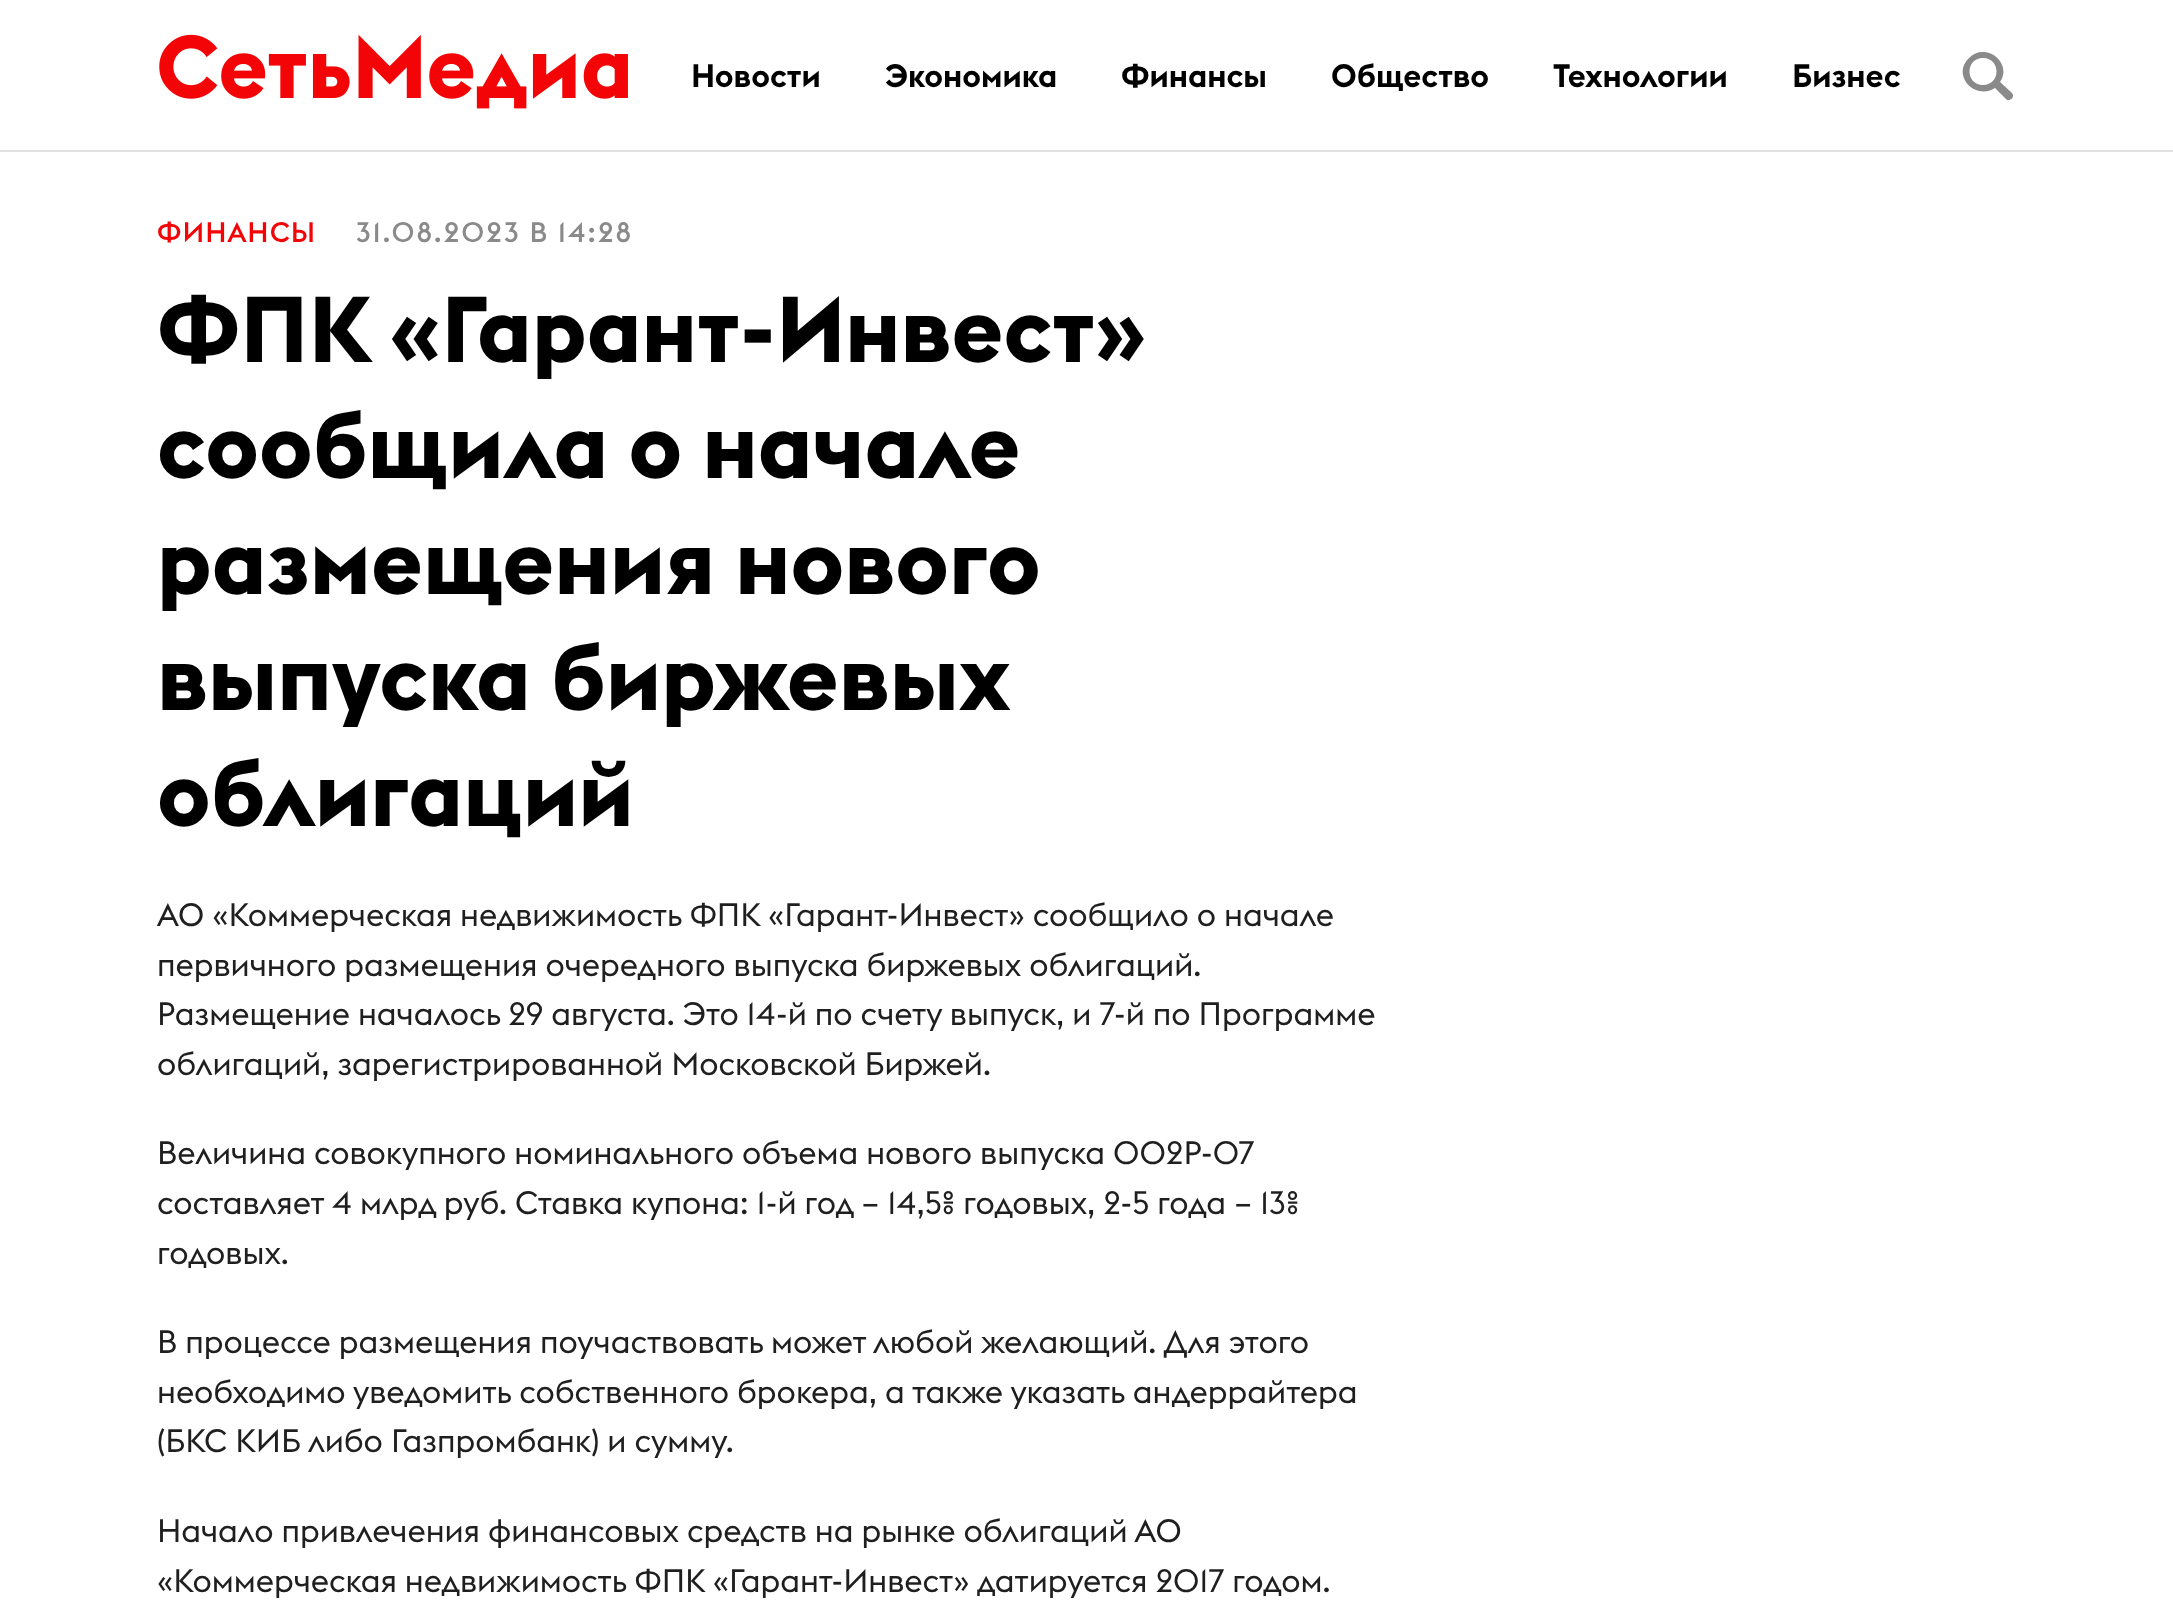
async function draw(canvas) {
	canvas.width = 2173;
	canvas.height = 1605;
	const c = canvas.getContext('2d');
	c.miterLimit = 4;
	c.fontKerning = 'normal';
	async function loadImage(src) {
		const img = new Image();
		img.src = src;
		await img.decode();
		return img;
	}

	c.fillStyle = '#fff';
	c.fillRect(0, 0, 2173, 1605);
	c.fillStyle = '#e0e0e0';
	c.fillRect(0, 150, 2173, 2);
	c.drawImage(await loadImage('img1.png'), 159, 34, 469, 75);
	c.font = '600 32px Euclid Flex';
	c.fillStyle = '#000';
	for (const [text, x, y] of [
		['Новости', 691, 87],
		['Экономика', 885, 87],
		['Финансы', 1121, 87],
		['Общество', 1331, 87],
		['Технологии', 1553, 87],
		['Бизнес', 1792, 87],
	]) {
		c.fillText(text, x, y);
	}
	c.save();
	c.beginPath();
	c.rect(1958, 52, 60, 48);
	c.clip();
	c.fillStyle = '#8a8a8a';
	c.beginPath();
	c.moveTo(2012, 93);
	c.lineTo(2000, 82);
	c.bezierCurveTo(2013, 63, 1986, 41, 1969, 58);
	c.bezierCurveTo(1951, 75, 1975, 101, 1995, 88);
	c.lineTo(2007, 100);
	c.bezierCurveTo(2011, 101, 2015, 97, 2012, 93);
	c.closePath();
	c.moveTo(1983, 85);
	c.bezierCurveTo(1965, 85, 1965, 58, 1983, 58);
	c.bezierCurveTo(2001, 58, 2001, 85, 1983, 85);
	c.closePath();
	c.fill();
	c.restore();
	c.letterSpacing = '1px';
	c.font = '500 28px Euclid Flex';
	c.fillStyle = '#f30406';
	c.fillText('ФИНАНСЫ', 157, 242);
	c.letterSpacing = '2px';
	c.fillStyle = '#8a8a8a';
	c.fillText('31.08.2023 В 14:28', 356, 242);
	c.letterSpacing = '0px';
	c.font = 'bold 92px Euclid Flex';
	c.fillStyle = '#000';
	for (const [text, x, y] of [
		['ФПК «Гарант-Инвест»', 157, 362],
		['сообщила о начале', 157, 478],
		['размещения нового', 157, 594],
		['выпуска биржевых', 157, 710],
		['облигаций', 157, 826],
	]) {
		c.fillText(text, x, y);
	}
	c.font = '32px Euclid Flex';
	c.fillStyle = '#1f1f1f';
	for (const [text, x, y] of [
		['АО «Коммерческая недвижимость ФПК «Гарант-Инвест» сообщило о начале', 157, 926],
		['первичного размещения очередного выпуска биржевых облигаций.', 157, 976],
		['Размещение началось 29 августа. Это 14-й по счету выпуск, и 7-й по Программе', 157, 1025],
		['облигаций, зарегистрированной Московской Биржей.', 157, 1075],
		['Величина совокупного номинального объема нового выпуска 002Р-07', 157, 1164],
		['составляет 4 млрд руб. Ставка купона: 1-й год – 14,5% годовых, 2-5 года – 13%', 157, 1214],
		['годовых.', 157, 1264],
		['В процессе размещения поучаствовать может любой желающий. Для этого', 157, 1353],
		['необходимо уведомить собственного брокера, а также указать андеррайтера', 157, 1403],
		['(БКС КИБ либо Газпромбанк) и сумму.', 157, 1452],
		['Начало привлечения финансовых средств на рынке облигаций АО', 157, 1542],
		['«Коммерческая недвижимость ФПК «Гарант-Инвест» датируется 2017 годом.', 157, 1592],
	]) {
		c.fillText(text, x, y);
	}
}

draw(document.querySelector('canvas'));
